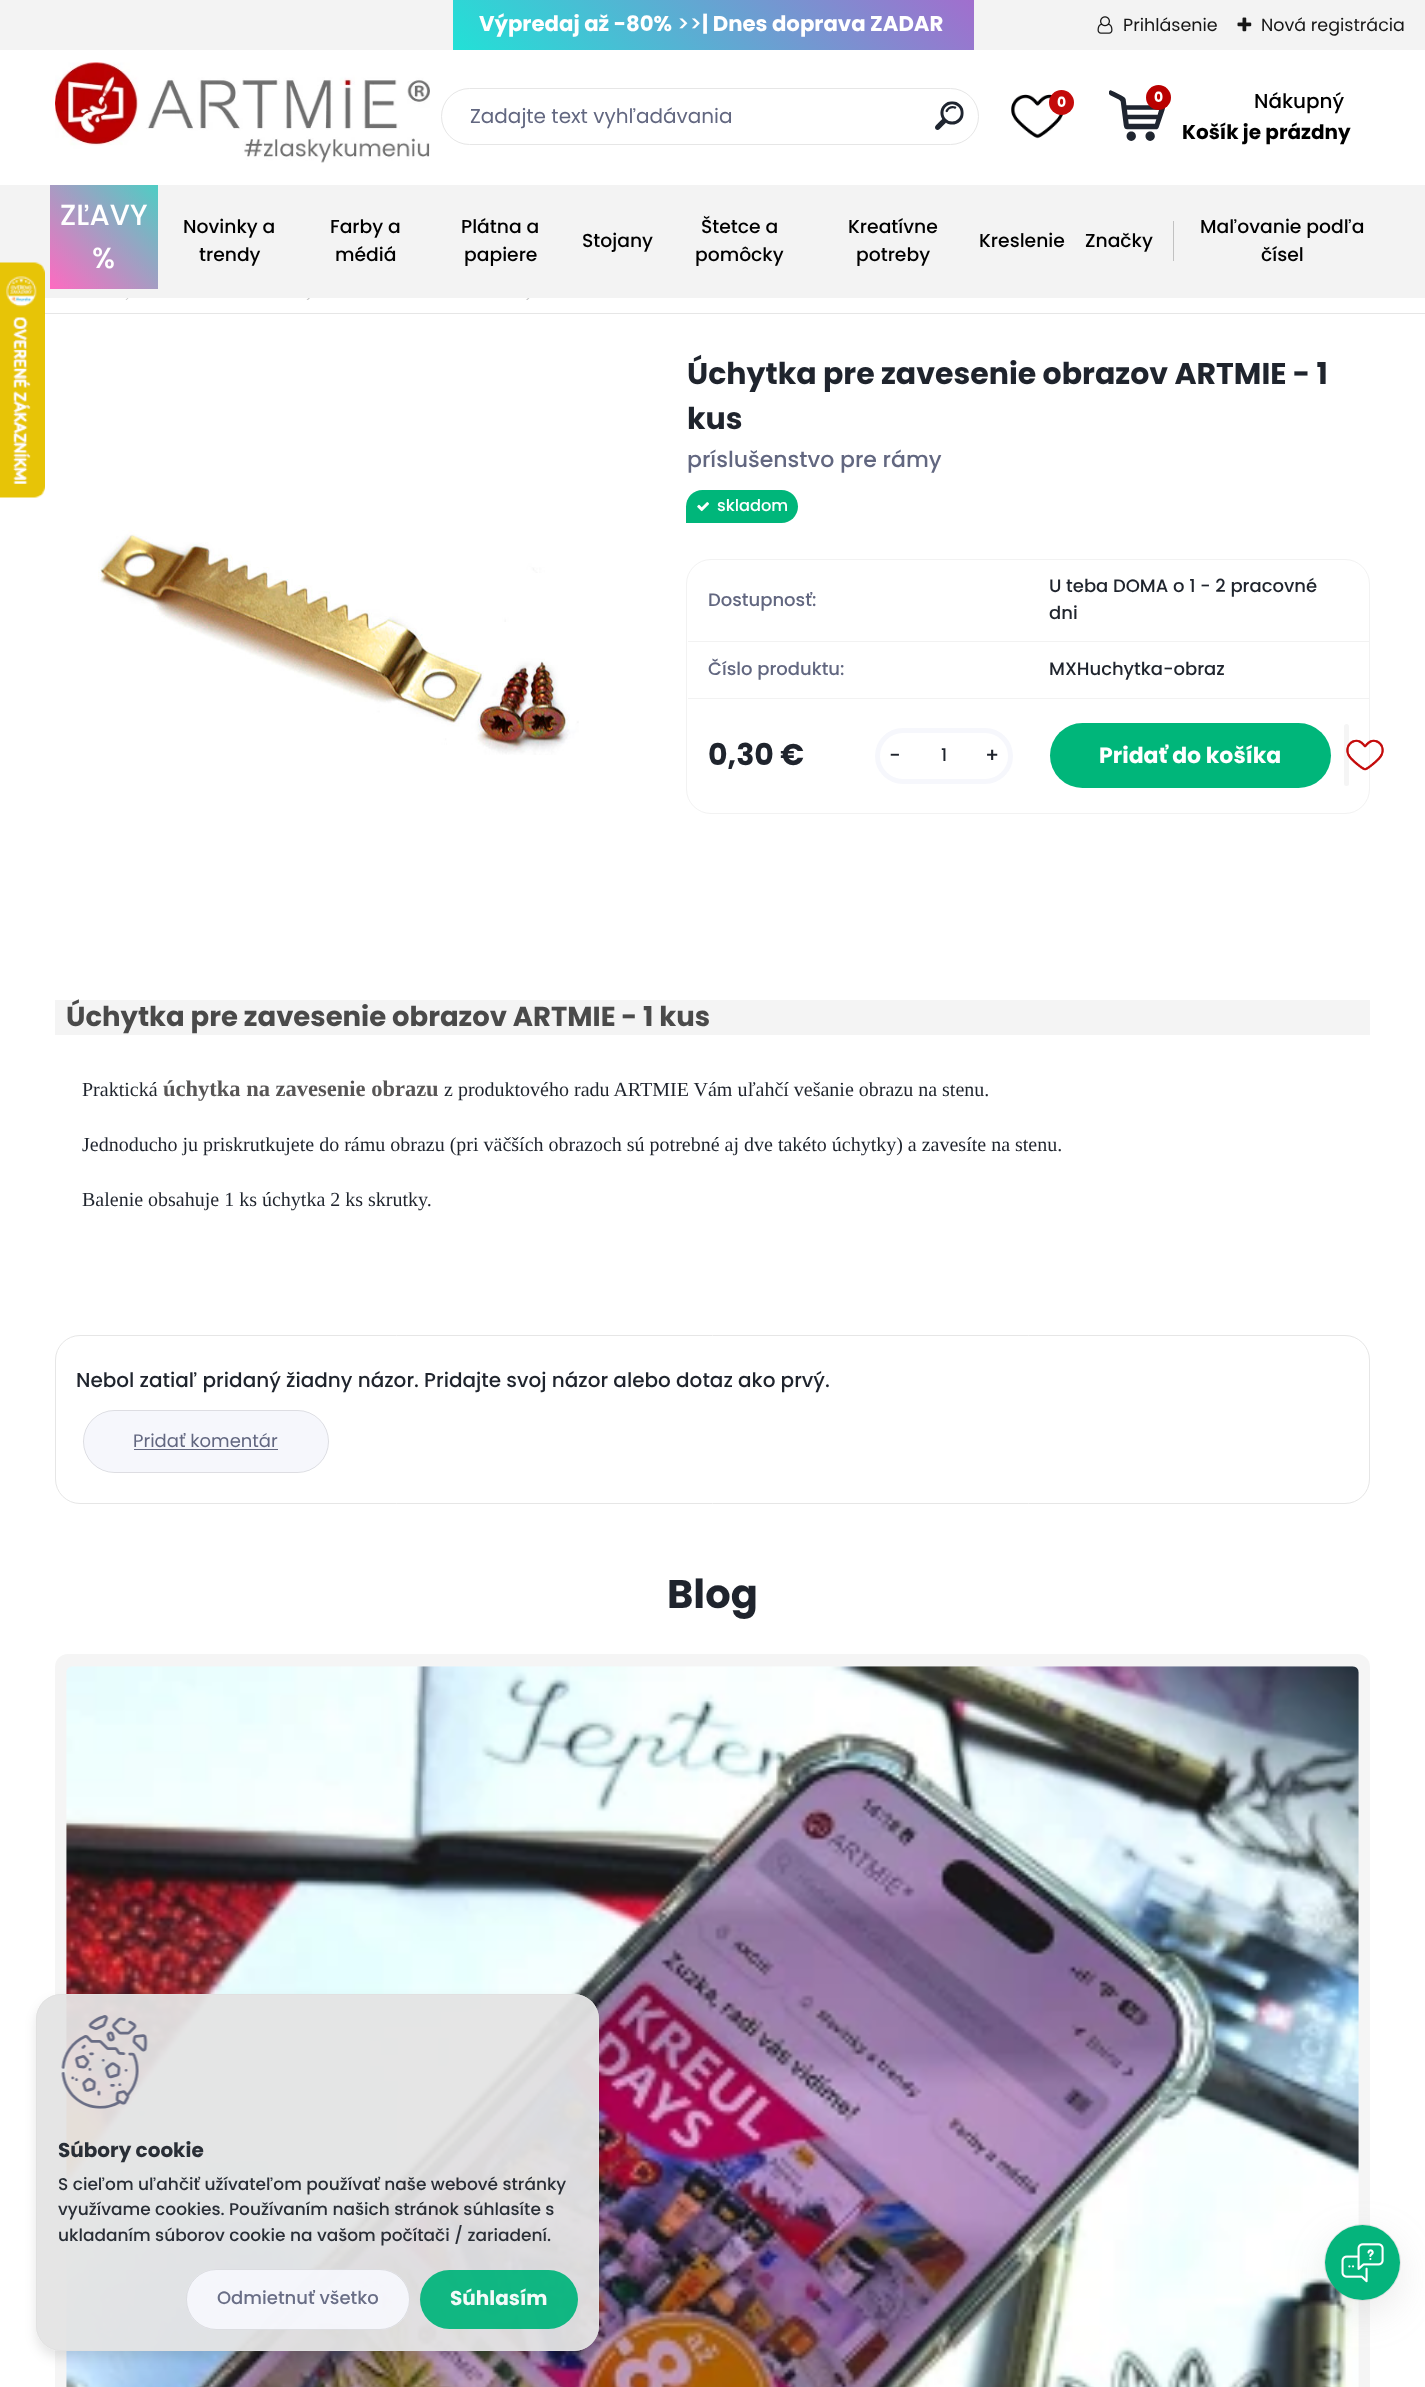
async function draw(canvas) {
	canvas.width = 1425;
	canvas.height = 2387;
	const c = canvas.getContext('2d');
	c.miterLimit = 4;
	c.fontKerning = 'normal';
	async function loadImage(src) {
		const img = new Image();
		img.src = src;
		await img.decode();
		return img;
	}
	let gradient;

	c.fillStyle = '#fff';
	c.fillRect(0, 0, 1425, 2387);
	c.fillStyle = '#c3c3c3';
	c.beginPath();
	c.moveTo(137.5, 288);
	c.lineTo(138.5, 288);
	c.lineTo(126.5, 300);
	c.lineTo(125.5, 300);
	c.closePath();
	c.fill();
	c.beginPath();
	c.moveTo(318.5, 288);
	c.lineTo(320, 288);
	c.lineTo(308, 300);
	c.lineTo(306.5, 300);
	c.closePath();
	c.fill();
	c.beginPath();
	c.moveTo(538, 288);
	c.lineTo(539, 288);
	c.lineTo(527.5, 300);
	c.lineTo(526, 300);
	c.closePath();
	c.fill();
	c.fillStyle = '#f3f3f3';
	c.fillRect(0, 185, 1425, 113);
	c.drawImage(await loadImage('img1.png'), 0, 262, 45, 236);
	c.fillRect(0, 0, 1425, 50);
	gradient = c.createLinearGradient(924, 671, 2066, -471);
	gradient.addColorStop(0, '#00ffd9');
	gradient.addColorStop(0.5, '#ff1ac7');
	gradient.addColorStop(1, '#00ffd9');
	c.fillStyle = gradient;
	c.fillRect(453, 0, 521, 50);
	c.font = 'bold 21.25px Poppins';
	c.fillStyle = '#fff';
	c.fillText('Výpredaj až -80%', 479, 31);
	c.font = '500 21.25px Poppins';
	c.fillText('>>', 677, 31);
	c.font = 'bold 21.25px Poppins';
	c.fillText('| Dnes doprava ZADAR', 702, 31);
	gradient = c.createLinearGradient(51, 290, 157, 184);
	gradient.addColorStop(0, '#ff6ac1');
	gradient.addColorStop(1, '#4ecdc4');
	c.fillStyle = gradient;
	c.fillRect(50, 185, 108, 104);
	c.font = '500 29px Poppins';
	c.fillStyle = '#fff';
	c.fillText('ZĽAVY', 60, 225);
	c.fillText('%', 92, 268);
	c.font = '500 18.75px Poppins';
	c.fillStyle = '#000';
	for (const [text, x, y] of [
		['Novinky a', 183, 233],
		['trendy', 199, 261],
		['Farby a', 330, 233],
		['médiá', 335, 261],
		['Plátna a', 461, 233],
		['papiere', 464, 261],
		['Stojany', 582, 247],
		['Štetce a', 701, 233],
		['pomôcky', 695, 261],
		['Kreatívne', 848, 233],
		['potreby', 856, 261],
		['Kreslenie', 979, 247],
		['Značky', 1085, 247],
	]) {
		c.fillText(text, x, y);
	}
	c.fillStyle = '#c1c1c1';
	c.fillRect(1173, 221, 1, 40);
	c.fillStyle = '#000';
	c.fillText('Maľovanie podľa', 1200, 233);
	c.fillText('čísel', 1261, 261);
	c.drawImage(await loadImage('img2.png'), 1097, 16, 16, 18);
	c.font = '17.5px Poppins';
	c.fillStyle = '#171717';
	c.fillText('Prihlásenie', 1123, 31);
	c.drawImage(await loadImage('img3.png'), 1237, 17, 15, 15);
	c.fillText('Nová registrácia', 1261, 31);
	c.drawImage(await loadImage('img4.png'), 55, 62, 375, 101);
	c.beginPath();
	c.roundRect(441.5, 88.5, 537, 56, 28);
	c.strokeStyle = '#e6e6e6';
	c.stroke();
	c.font = '20px Poppins';
	c.fillStyle = '#626780';
	c.fillText('Zadajte text vyhľadávania', 470, 123);
	c.drawImage(await loadImage('img5.png'), 935, 101, 29, 29);
	c.drawImage(await loadImage('img6.png'), 1011, 94, 53, 45);
	c.fillStyle = '#c40b0b';
	c.beginPath();
	c.arc(1061.5, 102.5, 12.5, 0, 2 * Math.PI);
	c.fill();
	c.font = 'bold 14px Poppins';
	c.fillStyle = '#fff';
	c.fillText('0', 1057, 107);
	c.drawImage(await loadImage('img7.png'), 1109, 90, 56, 51);
	c.fillStyle = '#ba0000';
	c.beginPath();
	c.arc(1158.5, 97.5, 12.5, 0, 2 * Math.PI);
	c.fill();
	c.fillStyle = '#fff';
	c.fillText('0', 1154, 102);
	c.font = '500 20px Poppins';
	c.fillStyle = '#000';
	c.fillText('Nákupný', 1254, 108);
	c.font = 'bold 20px Poppins';
	c.fillText('Košík je prázdny', 1182, 139);
	c.fillStyle = '#e6e6e6';
	c.fillRect(45, 313, 1380, 1);
	c.drawImage(await loadImage('img8.png'), 98, 530, 481, 225);
	c.font = 'bold 30px Poppins';
	c.fillStyle = '#1f242d';
	c.fillText('Úchytka pre zavesenie obrazov ARTMIE - 1', 687, 384);
	c.fillText('kus', 687, 429);
	c.font = '500 22px Poppins';
	c.fillStyle = '#626780';
	c.fillText('príslušenstvo pre rámy', 687, 467);
	c.fillStyle = '#00b67a';
	c.beginPath();
	c.roundRect(686, 490, 112, 33, [16.5, 16.5, 16.5, 0]);
	c.fill();
	c.drawImage(await loadImage('img9.png'), 697, 502, 12, 10);
	c.font = '500 16.25px Poppins';
	c.fillStyle = '#fff';
	c.fillText('skladom', 717, 511);
	c.beginPath();
	c.roundRect(686.5, 559.5, 683, 254, 24.5);
	c.strokeStyle = '#f2f2f2';
	c.stroke();
	c.fillStyle = '#f2f2f2';
	c.fillRect(688, 641, 681, 1);
	c.font = '500 18px Poppins';
	c.fillStyle = '#626780';
	c.fillText('Dostupnosť:', 708, 606);
	c.fillStyle = '#1f242d';
	c.fillText('U teba DOMA o 1 - 2 pracovné', 1049, 592);
	c.fillText('dni', 1049, 619);
	c.fillStyle = '#f2f2f2';
	c.fillRect(688, 698, 681, 1);
	c.fillStyle = '#626780';
	c.fillText('Číslo produktu:', 708, 675);
	c.fillStyle = '#1f242d';
	c.fillText('MXHuchytka-obraz', 1049, 675);
	c.font = 'bold 30px Poppins';
	c.fillText('0,30 €', 708, 765);
	c.beginPath();
	c.roundRect(877.5, 730.5, 133, 51, 25.5);
	c.strokeStyle = '#f6f7fc';
	c.lineWidth = 5;
	c.stroke();
	c.font = '500 20px Poppins';
	c.fillText('-', 889, 762);
	c.font = '500 17.5px Poppins';
	c.fillText('1', 941, 761);
	c.font = '500 20px Poppins';
	c.fillText('+', 985, 762);
	c.fillStyle = '#00b67a';
	c.beginPath();
	c.roundRect(1050, 723, 281, 65, 32.5);
	c.fill();
	c.font = 'bold 22px Poppins';
	c.fillStyle = '#fff';
	c.fillText('Pridať do košíka', 1099, 763);
	c.fillStyle = '#f5f5f5';
	c.beginPath();
	c.roundRect(1344, 724, 5, 62, 2.5);
	c.fill();
	c.drawImage(await loadImage('img10.png'), 1346, 739, 38, 32);
	c.fillStyle = '#f4f4f4';
	c.fillRect(55, 1000, 1315, 35);
	c.font = 'bold 27.5px Poppins';
	c.fillStyle = '#4a4a4a';
	c.fillText('Úchytka pre zavesenie obrazov ARTMIE - 1 kus', 66, 1026);
	c.font = '20px Liberation Serif';
	c.fillStyle = '#1f242d';
	c.fillText('Praktická', 82, 1096);
	c.font = 'bold 22.5px Liberation Serif';
	c.fillStyle = '#585656';
	c.fillText('úchytka na zavesenie obrazu', 163, 1096);
	c.font = '20px Liberation Serif';
	c.fillStyle = '#1f242d';
	for (const [text, x, y] of [
		['z produktového radu ARTMIE Vám uľahčí vešanie obrazu na stenu.', 444, 1096],
		['Jednoducho ju priskrutkujete do rámu obrazu (pri väčších obrazoch sú potrebné aj dve takéto úchytky) a zavesíte na stenu.', 82, 1151],
		['Balenie obsahuje 1 ks úchytka 2 ks skrutky.', 82, 1206],
	]) {
		c.fillText(text, x, y);
	}
	c.beginPath();
	c.roundRect(55.5, 1335.5, 1314, 168, 24.5);
	c.strokeStyle = '#e6e6e6';
	c.lineWidth = 1;
	c.stroke();
	c.font = '500 20px Poppins';
	c.fillText('Nebol zatiaľ pridaný žiadny názor. Pridajte svoj názor alebo dotaz ako prvý.', 76, 1387);
	c.fillStyle = '#f6f7fc';
	c.beginPath();
	c.roundRect(83, 1410, 246, 63, 31.5);
	c.fill();
	c.beginPath();
	c.roundRect(83.5, 1410.5, 245, 62, 31);
	c.strokeStyle = '#0000001a';
	c.stroke();
	c.font = '18px Poppins';
	c.fillStyle = '#626780';
	c.fillText('Pridať komentár', 133, 1447);
	c.fillRect(134, 1449, 144, 1);
	c.font = 'bold 40px Poppins';
	c.fillStyle = '#1f242d';
	c.fillText('Blog', 667, 1608);
	c.fillStyle = '#f5f5f5';
	c.beginPath();
	c.roundRect(55, 1654, 1315, 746, 13);
	c.fill();
	c.drawImage(await loadImage('img11.png'), 66, 1666, 1293, 721);
	c.save();
	c.beginPath();
	c.moveTo(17, 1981);
	c.lineTo(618, 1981);
	c.lineTo(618, 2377);
	c.lineTo(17, 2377);
	c.closePath();
	c.moveTo(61, 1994);
	c.lineTo(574, 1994);
	c.bezierCurveTo(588, 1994, 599, 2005, 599, 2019);
	c.lineTo(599, 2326);
	c.bezierCurveTo(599, 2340, 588, 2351, 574, 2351);
	c.lineTo(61, 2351);
	c.bezierCurveTo(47, 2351, 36, 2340, 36, 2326);
	c.lineTo(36, 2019);
	c.bezierCurveTo(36, 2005, 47, 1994, 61, 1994);
	c.closePath();
	c.clip('evenodd');
	c.fillStyle = '#0000001a';
	c.filter = 'blur(6px)';
	c.beginPath();
	c.roundRect(36, 2000, 563, 358, 25);
	c.fill();
	c.filter = 'none';
	c.restore();
	c.fillStyle = '#e4e4e4f2';
	c.beginPath();
	c.roundRect(36, 1994, 563, 357, 25);
	c.fill();
	c.beginPath();
	c.roundRect(36.5, 1994.5, 562, 356, 24.5);
	c.strokeStyle = '#e0e0e0f2';
	c.stroke();
	c.drawImage(await loadImage('img12.png'), 61, 2015, 87, 94);
	c.font = 'bold 20px Poppins';
	c.fillStyle = '#292e36';
	c.fillText('Súbory cookie', 58, 2157);
	c.font = '500 17px Poppins';
	for (const [text, x, y] of [
		['S cieľom uľahčiť užívateľom používať naše webové stránky', 58, 2190],
		['využívame cookies. Používaním našich stránok súhlasíte s', 58, 2215],
		['ukladaním súborov cookie na vašom počítači / zariadení.', 58, 2241],
	]) {
		c.fillText(text, x, y);
	}
	c.fillStyle = '#f6f7fcf2';
	c.beginPath();
	c.roundRect(186, 2269, 224, 61, 30.5);
	c.fill();
	c.beginPath();
	c.roundRect(186.5, 2269.5, 223, 60, 30);
	c.strokeStyle = '#0000001a';
	c.stroke();
	c.font = '500 18px Poppins';
	c.fillStyle = '#696e86';
	c.fillText('Odmietnuť všetko', 217, 2304);
	c.fillStyle = '#05b47cf2';
	c.beginPath();
	c.roundRect(420, 2270, 158, 59, 29.5);
	c.fill();
	c.font = 'bold 20px Poppins';
	c.fillStyle = '#f3fbf9';
	c.fillText('Súhlasím', 450, 2305);
	c.beginPath();
	c.arc(1362.5, 2262.5, 38, 0, 2 * Math.PI);
	c.strokeStyle = '#96969633';
	c.stroke();
	c.fillStyle = '#96969633';
	c.filter = 'blur(19px)';
	c.beginPath();
	c.roundRect(1325, 2238, 75, 75, 37.5);
	c.fill();
	c.filter = 'none';
	c.fillStyle = '#05b47c';
	c.beginPath();
	c.arc(1362.5, 2262.5, 37.5, 0, 2 * Math.PI);
	c.fill();
	c.drawImage(await loadImage('img13.png'), 1341, 2243, 43, 40);
}

draw(document.querySelector('canvas'));
